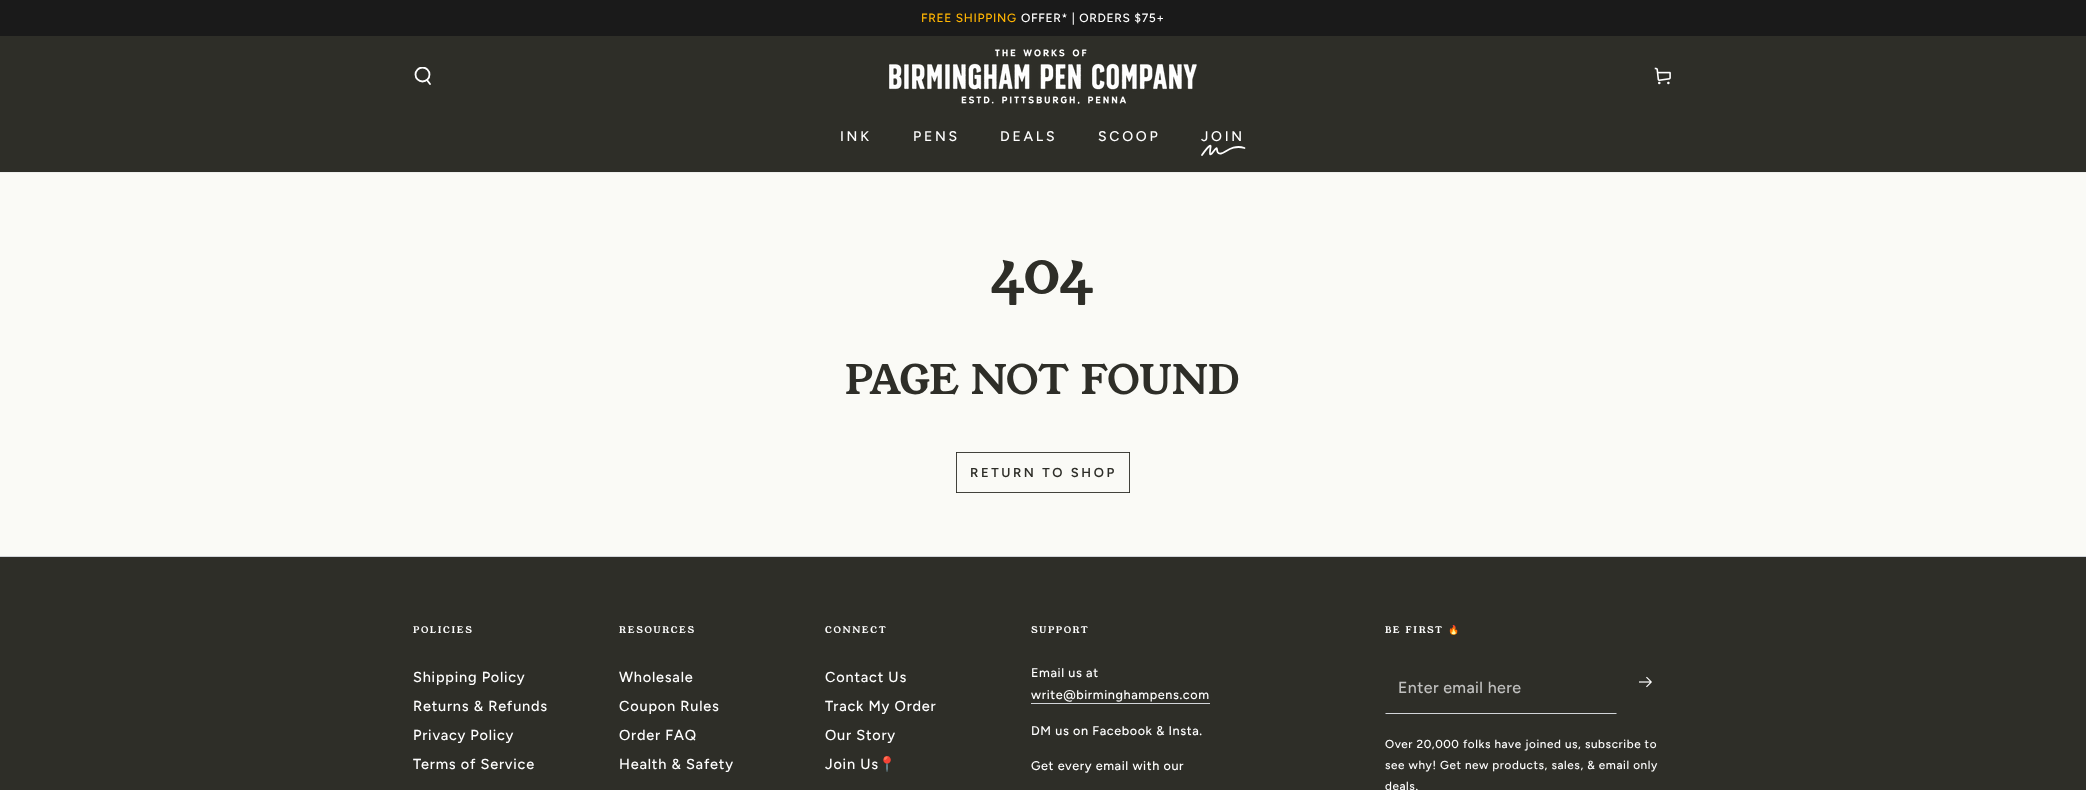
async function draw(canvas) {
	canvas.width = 2086;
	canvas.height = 790;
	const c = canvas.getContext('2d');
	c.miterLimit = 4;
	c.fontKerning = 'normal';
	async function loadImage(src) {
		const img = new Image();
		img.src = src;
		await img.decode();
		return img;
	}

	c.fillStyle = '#fafaf6';
	c.fillRect(0, 0, 2086, 790);
	c.fillStyle = '#1a1a1a';
	c.fillRect(0, 0, 2086, 36);
	c.letterSpacing = '0.7px';
	c.font = '500 12px Figtree';
	c.fillStyle = '#ffb503';
	c.fillText('FREE SHIPPING', 921, 22);
	c.fillStyle = '#fff';
	c.fillText('OFFER* | ORDERS $75+', 1021, 22);
	c.fillStyle = '#eeefed';
	c.fillRect(0, 172, 2086, 1);
	c.fillStyle = '#2e2e28';
	c.fillRect(0, 36, 2086, 136);
	c.save();
	c.beginPath();
	c.rect(414, 67, 18, 18);
	c.clip();
	c.beginPath();
	c.arc(422.5, 74.5, 7, 0, 2 * Math.PI);
	c.strokeStyle = '#fff';
	c.lineWidth = 1.8;
	c.stroke();
	c.restore();
	c.beginPath();
	c.moveTo(427, 80);
	c.lineTo(430, 84);
	c.strokeStyle = '#fff';
	c.lineWidth = 1.8;
	c.lineCap = 'round';
	c.stroke();
	c.drawImage(await loadImage('img1.png'), 889, 49, 308, 55);
	c.drawImage(await loadImage('img2.png'), 1654, 67, 17, 18);
	c.letterSpacing = '2.75px';
	c.font = '500 14px Figtree';
	c.fillStyle = '#fff';
	for (const [text, x, y] of [
		['INK', 840, 141],
		['PENS', 913, 141],
		['DEALS', 1000, 141],
		['SCOOP', 1098, 141],
		['JOIN', 1201, 141],
	]) {
		c.fillText(text, x, y);
	}
	c.beginPath();
	c.moveTo(1202, 155);
	c.bezierCurveTo(1202, 155, 1212, 140.5, 1210.5, 147.5);
	c.bezierCurveTo(1209.5, 155, 1209, 157.5, 1215, 149.5);
	c.bezierCurveTo(1219, 144.5, 1214.5, 154.5, 1221, 153.5);
	c.bezierCurveTo(1225, 153, 1232.5, 144, 1244.5, 148);
	c.stroke();
	c.letterSpacing = '0.6px';
	c.font = '60px Young Serif';
	c.fillStyle = '#2e2e28';
	c.fillText('404', 991, 293);
	c.font = '40px Young Serif';
	c.fillText('PAGE NOT FOUND', 845, 394);
	c.strokeStyle = '#2e2e28';
	c.lineWidth = 0.9;
	c.strokeRect(956.45, 452.45, 173.1, 40.1);
	c.letterSpacing = '2.6px';
	c.font = '600 13px Figtree';
	c.fillText('RETURN TO SHOP', 970, 477);
	c.fillRect(0, 557, 2086, 233);
	c.fillStyle = '#d2d5d9';
	c.fillRect(0, 556, 2086, 1);
	c.letterSpacing = '1.75px';
	c.font = '9px Young Serif';
	c.fillStyle = '#fff';
	c.fillText('POLICIES', 413, 633);
	c.letterSpacing = '0.8px';
	c.font = '500 14.5px Figtree';
	for (const [text, x, y] of [
		['Shipping Policy', 413, 682],
		['Returns & Refunds', 413, 711],
		['Privacy Policy', 413, 740],
		['Terms of Service', 413, 769],
	]) {
		c.fillText(text, x, y);
	}
	c.letterSpacing = '1.75px';
	c.font = '9px Young Serif';
	c.fillText('RESOURCES', 619, 633);
	c.letterSpacing = '0.8px';
	c.font = '500 14.5px Figtree';
	for (const [text, x, y] of [
		['Wholesale', 619, 682],
		['Coupon Rules', 619, 711],
		['Order FAQ', 619, 740],
		['Health & Safety', 619, 769],
	]) {
		c.fillText(text, x, y);
	}
	c.letterSpacing = '1.75px';
	c.font = '9px Young Serif';
	c.fillText('CONNECT', 825, 633);
	c.letterSpacing = '0.8px';
	c.font = '500 14.5px Figtree';
	for (const [text, x, y] of [
		['Contact Us', 825, 682],
		['Track My Order', 825, 711],
		['Our Story', 825, 740],
		['Join Us', 825, 769],
	]) {
		c.fillText(text, x, y);
	}
	c.font = '14.5px Noto Color Emoji';
	c.fillText('📍', 878, 769);
	c.letterSpacing = '1.75px';
	c.font = '9px Young Serif';
	c.fillText('SUPPORT', 1031, 633);
	c.letterSpacing = '0.6px';
	c.font = '500 12.6px Figtree';
	c.fillText('Email us at', 1031, 677);
	c.fillText('write@birminghampens.com', 1031, 699);
	c.fillStyle = '#d2d5d9';
	c.fillRect(1031, 703, 179, 1);
	c.fillStyle = '#fff';
	c.fillText('DM us on Facebook & Insta.', 1031, 735);
	c.fillText('Get every email with our', 1031, 770);
	c.letterSpacing = '1.75px';
	c.font = '9px Young Serif';
	c.fillText('BE FIRST', 1385, 633);
	c.font = '9px Noto Color Emoji';
	c.fillText('🔥', 1448, 633);
	c.fillStyle = '#d2d5d9';
	c.beginPath();
	c.moveTo(1617, 714);
	c.lineTo(1385, 714);
	c.lineTo(1386, 713);
	c.lineTo(1616, 713);
	c.closePath();
	c.fill();
	c.letterSpacing = '0.4px';
	c.font = '500 16px Figtree';
	c.fillStyle = '#c0c0bf';
	c.fillText('Enter email here', 1398, 693);
	c.drawImage(await loadImage('img3.png'), 1639, 676, 13, 12);
	c.letterSpacing = '0.6px';
	c.font = '500 11.7px Figtree';
	c.fillStyle = '#fff';
	for (const [text, x, y] of [
		['Over 20,000 folks have joined us, subscribe to', 1385, 748],
		['see why! Get new products, sales, & email only', 1385, 769],
		['deals.', 1385, 790],
	]) {
		c.fillText(text, x, y);
	}
}

draw(document.querySelector('canvas'));
